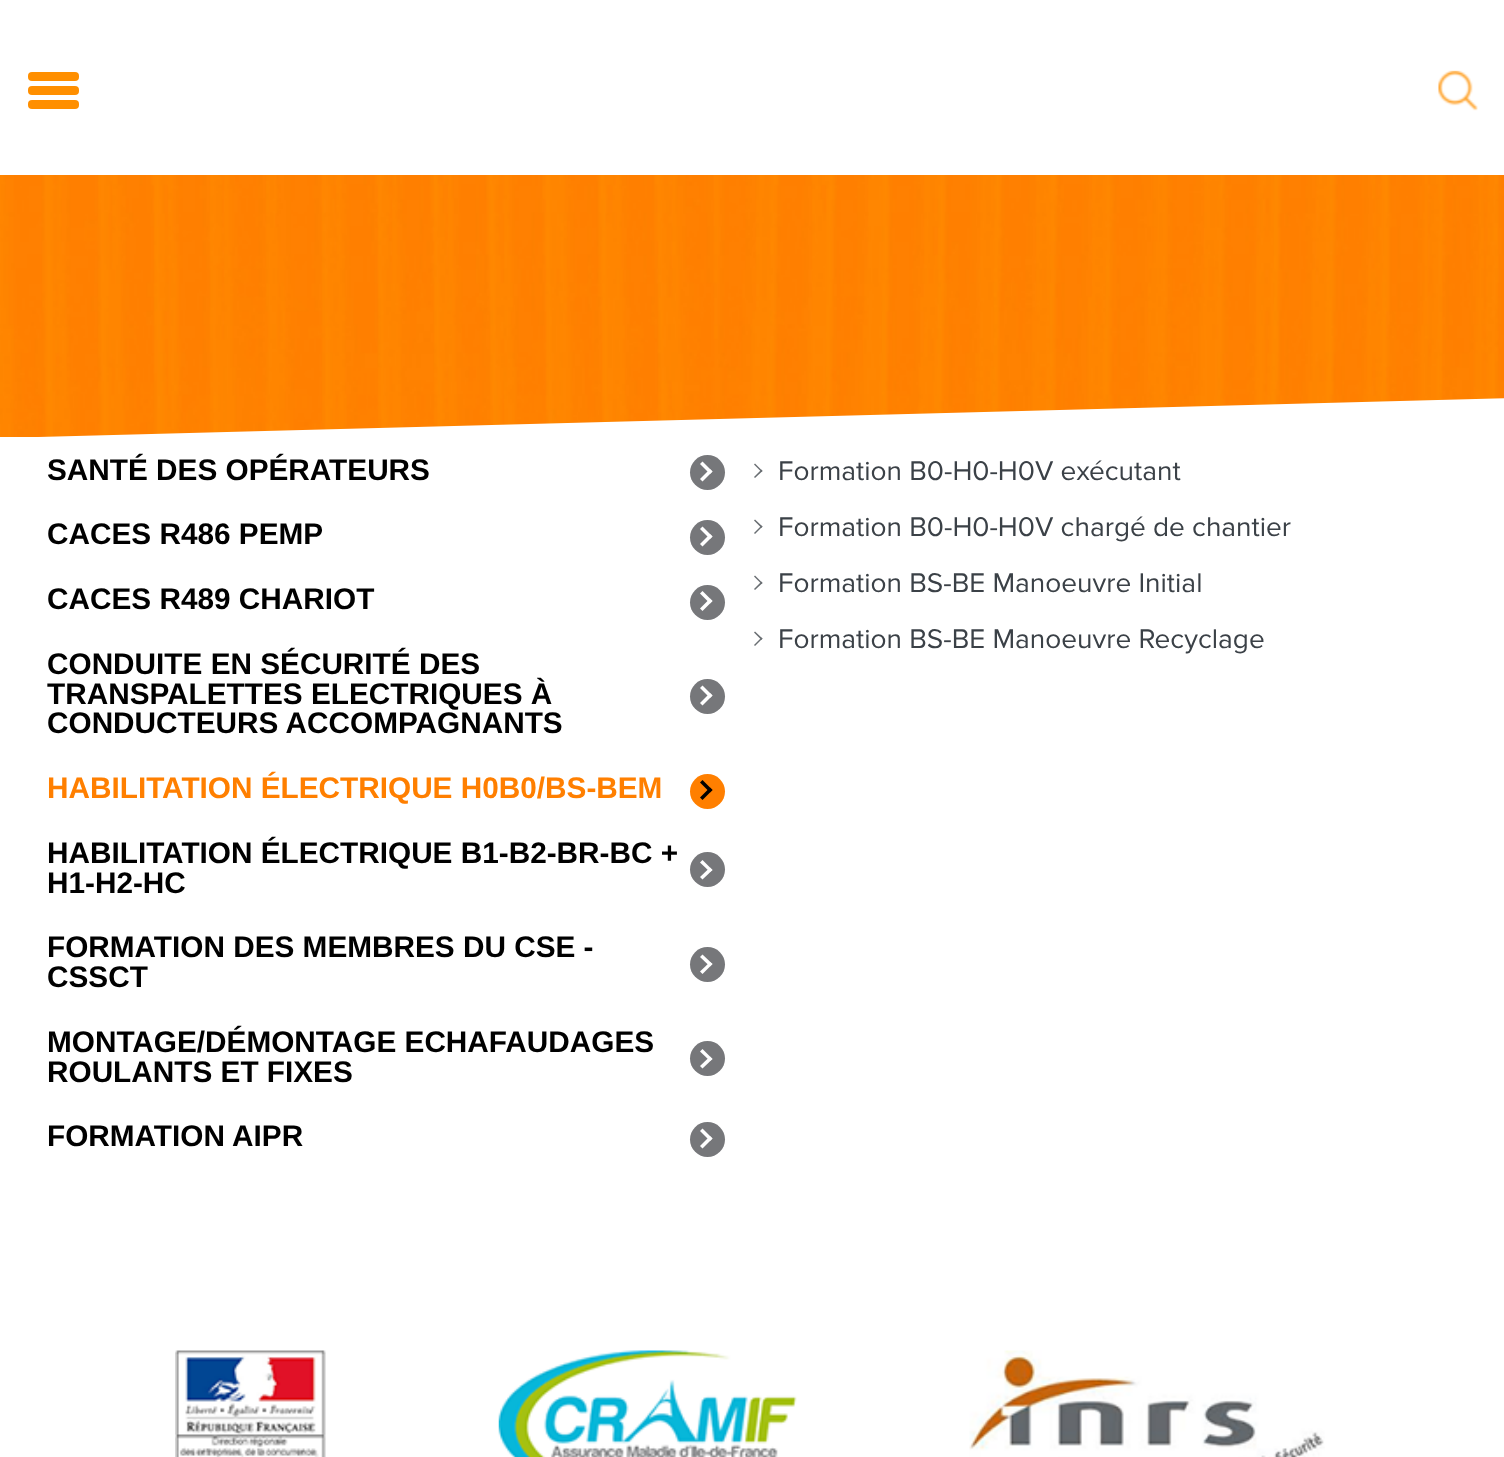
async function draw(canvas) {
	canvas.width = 1504;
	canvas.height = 1457;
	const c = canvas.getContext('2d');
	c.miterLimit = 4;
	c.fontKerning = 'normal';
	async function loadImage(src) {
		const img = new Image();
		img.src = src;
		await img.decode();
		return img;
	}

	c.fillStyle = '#fff';
	c.fillRect(0, 0, 1504, 1457);
	c.fillStyle = '#ff8f00';
	c.beginPath();
	c.roundRect(28, 86, 51, 9, 4);
	c.fill();
	c.beginPath();
	c.roundRect(28, 72, 51, 9, 4);
	c.fill();
	c.beginPath();
	c.roundRect(28, 100, 51, 9, 4);
	c.fill();
	c.drawImage(await loadImage('img1.png'), 1438, 70, 40, 41);
	c.drawImage(await loadImage('img2.png'), 0, 175, 1504, 262);
	c.fillStyle = '#fff';
	c.beginPath();
	c.moveTo(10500, 438);
	c.lineTo(0, 438);
	c.lineTo(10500, 161);
	c.closePath();
	c.fill();
	c.font = 'bold 29.75px Liberation Sans';
	c.fillStyle = '#000';
	c.fillText('SANTÉ DES OPÉRATEURS', 47, 480);
	c.fillStyle = '#76777a';
	c.beginPath();
	c.arc(707.5, 472.5, 17.5, 0, 2 * Math.PI);
	c.fill();
	c.fillStyle = '#fff';
	c.beginPath();
	c.moveTo(700, 464);
	c.lineTo(702.5, 461.5);
	c.lineTo(712.5, 471.5);
	c.lineTo(710, 474);
	c.closePath();
	c.fill();
	c.beginPath();
	c.moveTo(700, 479);
	c.lineTo(710, 469);
	c.lineTo(712.5, 471.5);
	c.lineTo(702.5, 481.5);
	c.closePath();
	c.fill();
	c.fillStyle = '#000';
	c.fillText('CACES R486 PEMP', 47, 544);
	c.fillStyle = '#76777a';
	c.beginPath();
	c.arc(707.5, 537.5, 17.5, 0, 2 * Math.PI);
	c.fill();
	c.fillStyle = '#fff';
	c.beginPath();
	c.moveTo(700, 529);
	c.lineTo(702.5, 526.5);
	c.lineTo(712.5, 536.5);
	c.lineTo(710, 539);
	c.closePath();
	c.fill();
	c.beginPath();
	c.moveTo(700, 544);
	c.lineTo(710, 534);
	c.lineTo(712.5, 536.5);
	c.lineTo(702.5, 546.5);
	c.closePath();
	c.fill();
	c.fillStyle = '#000';
	c.fillText('CACES R489 CHARIOT', 47, 609);
	c.fillStyle = '#76777a';
	c.beginPath();
	c.arc(707.5, 602.5, 17.5, 0, 2 * Math.PI);
	c.fill();
	c.fillStyle = '#fff';
	c.beginPath();
	c.moveTo(700, 593.5);
	c.lineTo(702.5, 591);
	c.lineTo(712.5, 601);
	c.lineTo(710, 603.5);
	c.closePath();
	c.fill();
	c.beginPath();
	c.moveTo(700, 608.5);
	c.lineTo(710, 598.5);
	c.lineTo(712.5, 601);
	c.lineTo(702.5, 611);
	c.closePath();
	c.fill();
	c.fillStyle = '#000';
	for (const [text, x, y] of [
		['CONDUITE EN SÉCURITÉ DES', 47, 674],
		['TRANSPALETTES ELECTRIQUES À', 47, 704],
		['CONDUCTEURS ACCOMPAGNANTS', 47, 733],
	]) {
		c.fillText(text, x, y);
	}
	c.fillStyle = '#76777a';
	c.beginPath();
	c.arc(707.5, 696.5, 17.5, 0, 2 * Math.PI);
	c.fill();
	c.fillStyle = '#fff';
	c.beginPath();
	c.moveTo(700, 688);
	c.lineTo(702.5, 685.5);
	c.lineTo(712.5, 695.5);
	c.lineTo(710, 698);
	c.closePath();
	c.fill();
	c.beginPath();
	c.moveTo(700, 703);
	c.lineTo(710, 693);
	c.lineTo(712.5, 695.5);
	c.lineTo(702.5, 705.5);
	c.closePath();
	c.fill();
	c.fillStyle = '#ff7f00';
	c.fillText('HABILITATION ÉLECTRIQUE H0B0/BS-BEM', 47, 798);
	c.beginPath();
	c.arc(707.5, 791.5, 17.5, 0, 2 * Math.PI);
	c.fill();
	c.fillStyle = '#000';
	c.beginPath();
	c.moveTo(700, 782.5);
	c.lineTo(702.5, 780);
	c.lineTo(712.5, 790);
	c.lineTo(710, 792.5);
	c.closePath();
	c.fill();
	c.beginPath();
	c.moveTo(700, 797.5);
	c.lineTo(710, 787.5);
	c.lineTo(712.5, 790);
	c.lineTo(702.5, 800);
	c.closePath();
	c.fill();
	c.fillText('HABILITATION ÉLECTRIQUE B1-B2-BR-BC +', 47, 863);
	c.fillText('H1-H2-HC', 47, 893);
	c.fillStyle = '#76777a';
	c.beginPath();
	c.arc(707.5, 869.5, 17.5, 0, 2 * Math.PI);
	c.fill();
	c.fillStyle = '#fff';
	c.beginPath();
	c.moveTo(700, 862.5);
	c.lineTo(702.5, 860);
	c.lineTo(712.5, 870);
	c.lineTo(710, 872);
	c.closePath();
	c.fill();
	c.beginPath();
	c.moveTo(700, 877);
	c.lineTo(710, 867.5);
	c.lineTo(712.5, 870);
	c.lineTo(702.5, 879.5);
	c.closePath();
	c.fill();
	c.fillStyle = '#000';
	c.fillText('FORMATION DES MEMBRES DU CSE -', 47, 957);
	c.fillText('CSSCT', 47, 987);
	c.fillStyle = '#76777a';
	c.beginPath();
	c.arc(707.5, 964.5, 17.5, 0, 2 * Math.PI);
	c.fill();
	c.fillStyle = '#fff';
	c.beginPath();
	c.moveTo(700, 957);
	c.lineTo(702.5, 954.5);
	c.lineTo(712.5, 964);
	c.lineTo(710, 966.5);
	c.closePath();
	c.fill();
	c.beginPath();
	c.moveTo(700, 971.5);
	c.lineTo(710, 962);
	c.lineTo(712.5, 964);
	c.lineTo(702.5, 974);
	c.closePath();
	c.fill();
	c.fillStyle = '#000';
	c.fillText('MONTAGE/DÉMONTAGE ECHAFAUDAGES', 47, 1052);
	c.fillText('ROULANTS ET FIXES', 47, 1082);
	c.fillStyle = '#76777a';
	c.beginPath();
	c.arc(707.5, 1058.5, 17.5, 0, 2 * Math.PI);
	c.fill();
	c.fillStyle = '#fff';
	c.beginPath();
	c.moveTo(700, 1051.5);
	c.lineTo(702.5, 1049);
	c.lineTo(712.5, 1059);
	c.lineTo(710, 1061);
	c.closePath();
	c.fill();
	c.beginPath();
	c.moveTo(700, 1066);
	c.lineTo(710, 1056.5);
	c.lineTo(712.5, 1059);
	c.lineTo(702.5, 1068.5);
	c.closePath();
	c.fill();
	c.fillStyle = '#000';
	c.fillText('FORMATION AIPR', 47, 1146);
	c.fillStyle = '#76777a';
	c.beginPath();
	c.arc(707.5, 1139.5, 17.5, 0, 2 * Math.PI);
	c.fill();
	c.fillStyle = '#fff';
	c.beginPath();
	c.moveTo(700, 1131);
	c.lineTo(702.5, 1128.5);
	c.lineTo(712.5, 1138.5);
	c.lineTo(710, 1141);
	c.closePath();
	c.fill();
	c.beginPath();
	c.moveTo(700, 1146);
	c.lineTo(710, 1136);
	c.lineTo(712.5, 1138.5);
	c.lineTo(702.5, 1148.5);
	c.closePath();
	c.fill();
	c.fillStyle = '#696e72';
	c.beginPath();
	c.moveTo(754, 464.5);
	c.lineTo(755, 463.5);
	c.lineTo(762.5, 471);
	c.lineTo(761.5, 472);
	c.closePath();
	c.fill();
	c.beginPath();
	c.moveTo(754, 477);
	c.lineTo(761.5, 469.5);
	c.lineTo(762.5, 471);
	c.lineTo(755, 478);
	c.closePath();
	c.fill();
	c.font = '28px Proxima Nova';
	c.fillStyle = '#3b4147';
	c.fillText('Formation B0-H0-H0V exécutant', 778, 480);
	c.fillStyle = '#696e72';
	c.beginPath();
	c.moveTo(754, 520.5);
	c.lineTo(755, 519.5);
	c.lineTo(762.5, 526.5);
	c.lineTo(761.5, 528);
	c.closePath();
	c.fill();
	c.beginPath();
	c.moveTo(754, 533);
	c.lineTo(761.5, 525.5);
	c.lineTo(762.5, 526.5);
	c.lineTo(755, 534);
	c.closePath();
	c.fill();
	c.fillStyle = '#3b4147';
	c.fillText('Formation B0-H0-H0V chargé de chantier', 778, 536);
	c.fillStyle = '#696e72';
	c.beginPath();
	c.moveTo(754, 576.5);
	c.lineTo(755, 575.5);
	c.lineTo(762.5, 583);
	c.lineTo(761.5, 584);
	c.closePath();
	c.fill();
	c.beginPath();
	c.moveTo(754, 589);
	c.lineTo(761.5, 581.5);
	c.lineTo(762.5, 583);
	c.lineTo(755, 590);
	c.closePath();
	c.fill();
	c.fillStyle = '#3b4147';
	c.fillText('Formation BS-BE Manoeuvre Initial', 778, 592);
	c.fillStyle = '#696e72';
	c.beginPath();
	c.moveTo(754, 632.5);
	c.lineTo(755, 631.5);
	c.lineTo(762.5, 638.5);
	c.lineTo(761.5, 640);
	c.closePath();
	c.fill();
	c.beginPath();
	c.moveTo(754, 645);
	c.lineTo(761.5, 637.5);
	c.lineTo(762.5, 638.5);
	c.lineTo(755, 646);
	c.closePath();
	c.fill();
	c.fillStyle = '#3b4147';
	c.fillText('Formation BS-BE Manoeuvre Recyclage', 778, 648);
	c.drawImage(await loadImage('img3.png'), 175, 1350, 151, 107);
	c.drawImage(await loadImage('img4.png'), 498, 1350, 299, 107);
	c.drawImage(await loadImage('img5.png'), 969, 1350, 356, 107);
}

draw(document.querySelector('canvas'));
